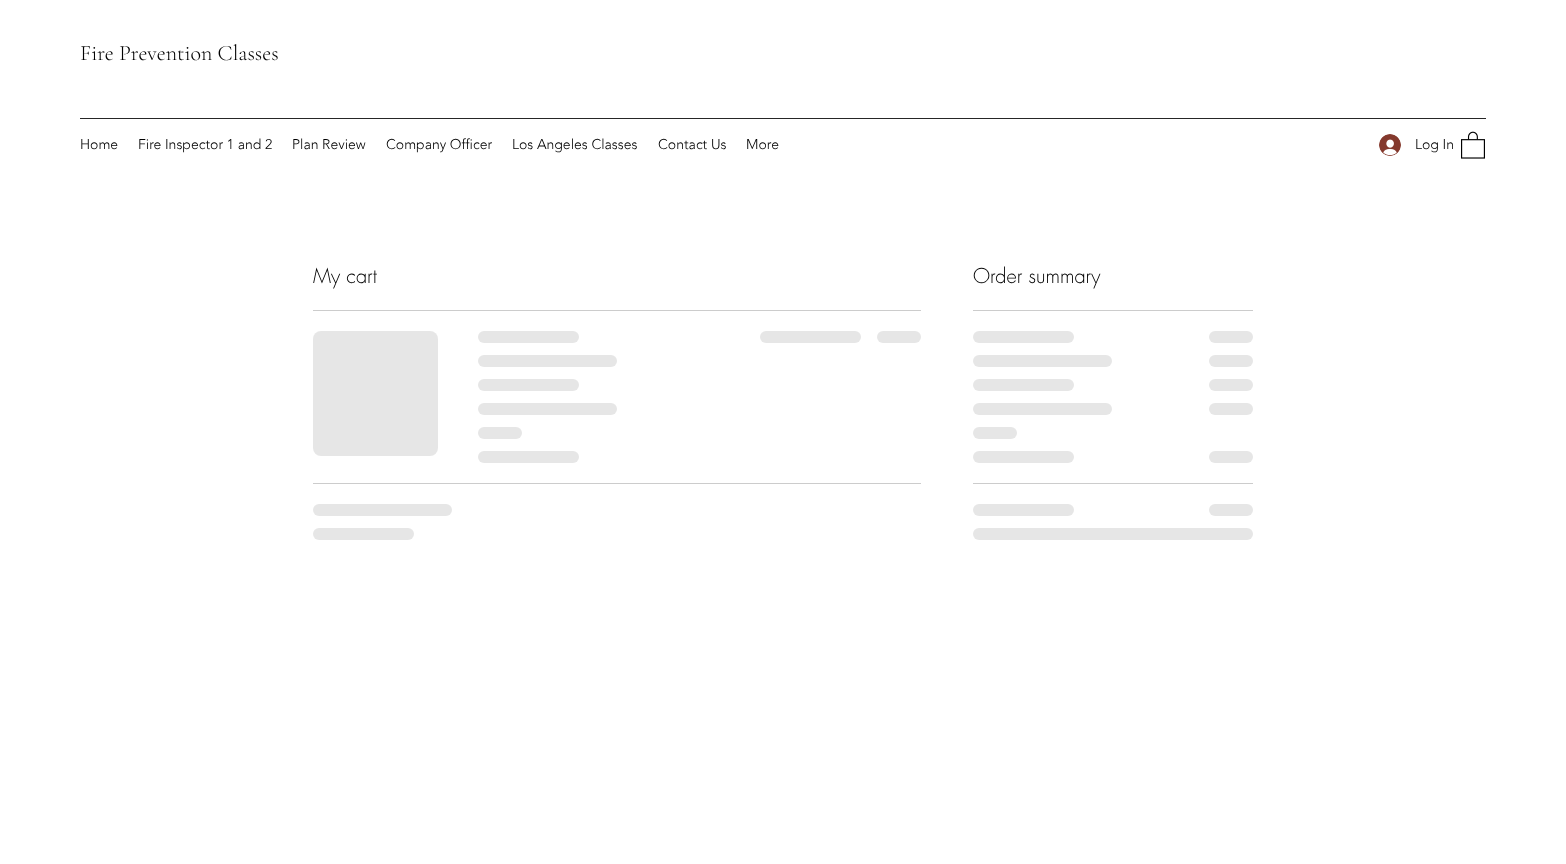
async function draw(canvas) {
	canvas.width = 1566;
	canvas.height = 864;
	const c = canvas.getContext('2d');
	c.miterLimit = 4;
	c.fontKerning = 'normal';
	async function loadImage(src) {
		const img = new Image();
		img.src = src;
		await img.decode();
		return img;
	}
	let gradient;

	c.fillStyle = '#fff';
	c.fillRect(0, 0, 1566, 864);
	c.font = '300 22px Cormorant Garamond';
	c.fillStyle = '#000';
	c.fillText('Fire Prevention Classes', 80, 60);
	c.fillStyle = '#262626';
	c.fillRect(80, 118, 1406, 1);
	c.font = '300 14px "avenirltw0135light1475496"';
	c.fillStyle = '#000';
	for (const [text, x, y] of [
		['Home', 80, 149],
		['Fire Inspector 1 and 2', 138, 149],
		['Plan Review', 292, 149],
		['Company Officer', 386, 149],
		['Los Angeles Classes', 512, 149],
		['Contact Us', 658, 149],
		['More', 746, 149],
	]) {
		c.fillText(text, x, y);
	}
	c.drawImage(await loadImage('img1.png'), 1379, 134, 22, 22);
	c.fillText('Log In', 1415, 149);
	c.drawImage(await loadImage('img2.png'), 1461, 131, 24, 28);
	c.fillStyle = '#ccc';
	c.fillRect(313, 310, 608, 1);
	c.font = '300 20px futura';
	c.fillStyle = '#000';
	c.fillText('My cart', 313, 283);
	gradient = c.createLinearGradient(313, 394, 813, 394);
	gradient.addColorStop(0.25, '#e6e6e6');
	gradient.addColorStop(0.37, '#ccc');
	gradient.addColorStop(0.63, '#e6e6e6');
	c.fillStyle = gradient;
	c.beginPath();
	c.roundRect(313, 331, 125, 125, 8);
	c.fill();
	gradient = c.createLinearGradient(478, 337, 882, 337);
	gradient.addColorStop(0.25, '#e6e6e6');
	gradient.addColorStop(0.37, '#ccc');
	gradient.addColorStop(0.63, '#e6e6e6');
	c.fillStyle = gradient;
	c.beginPath();
	c.roundRect(478, 331, 101, 12, 6);
	c.fill();
	gradient = c.createLinearGradient(478, 361, 1034, 361);
	gradient.addColorStop(0.25, '#e6e6e6');
	gradient.addColorStop(0.37, '#ccc');
	gradient.addColorStop(0.63, '#e6e6e6');
	c.fillStyle = gradient;
	c.beginPath();
	c.roundRect(478, 355, 139, 12, 6);
	c.fill();
	gradient = c.createLinearGradient(478, 385, 882, 385);
	gradient.addColorStop(0.25, '#e6e6e6');
	gradient.addColorStop(0.37, '#ccc');
	gradient.addColorStop(0.63, '#e6e6e6');
	c.fillStyle = gradient;
	c.beginPath();
	c.roundRect(478, 379, 101, 12, 6);
	c.fill();
	gradient = c.createLinearGradient(478, 409, 1034, 409);
	gradient.addColorStop(0.25, '#e6e6e6');
	gradient.addColorStop(0.37, '#ccc');
	gradient.addColorStop(0.63, '#e6e6e6');
	c.fillStyle = gradient;
	c.beginPath();
	c.roundRect(478, 403, 139, 12, 6);
	c.fill();
	gradient = c.createLinearGradient(478, 433, 654, 433);
	gradient.addColorStop(0.25, '#e6e6e6');
	gradient.addColorStop(0.37, '#ccc');
	gradient.addColorStop(0.63, '#e6e6e6');
	c.fillStyle = gradient;
	c.beginPath();
	c.roundRect(478, 427, 44, 12, 6);
	c.fill();
	gradient = c.createLinearGradient(478, 457, 882, 457);
	gradient.addColorStop(0.25, '#e6e6e6');
	gradient.addColorStop(0.37, '#ccc');
	gradient.addColorStop(0.63, '#e6e6e6');
	c.fillStyle = gradient;
	c.beginPath();
	c.roundRect(478, 451, 101, 12, 6);
	c.fill();
	gradient = c.createLinearGradient(760, 337, 1164, 337);
	gradient.addColorStop(0.25, '#e6e6e6');
	gradient.addColorStop(0.37, '#ccc');
	gradient.addColorStop(0.63, '#e6e6e6');
	c.fillStyle = gradient;
	c.beginPath();
	c.roundRect(760, 331, 101, 12, 6);
	c.fill();
	gradient = c.createLinearGradient(877, 337, 1053, 337);
	gradient.addColorStop(0.25, '#e6e6e6');
	gradient.addColorStop(0.37, '#ccc');
	gradient.addColorStop(0.63, '#e6e6e6');
	c.fillStyle = gradient;
	c.beginPath();
	c.roundRect(877, 331, 44, 12, 6);
	c.fill();
	c.fillStyle = '#ccc';
	c.fillRect(313, 483, 608, 1);
	gradient = c.createLinearGradient(313, 510, 869, 510);
	gradient.addColorStop(0.25, '#e6e6e6');
	gradient.addColorStop(0.37, '#ccc');
	gradient.addColorStop(0.63, '#e6e6e6');
	c.fillStyle = gradient;
	c.beginPath();
	c.roundRect(313, 504, 139, 12, 6);
	c.fill();
	gradient = c.createLinearGradient(313, 534, 717, 534);
	gradient.addColorStop(0.25, '#e6e6e6');
	gradient.addColorStop(0.37, '#ccc');
	gradient.addColorStop(0.63, '#e6e6e6');
	c.fillStyle = gradient;
	c.beginPath();
	c.roundRect(313, 528, 101, 12, 6);
	c.fill();
	c.fillStyle = '#ccc';
	c.fillRect(973, 310, 280, 1);
	c.fillStyle = '#000';
	c.fillText('Order summary', 973, 283);
	gradient = c.createLinearGradient(973, 337, 1377, 337);
	gradient.addColorStop(0.25, '#e6e6e6');
	gradient.addColorStop(0.37, '#ccc');
	gradient.addColorStop(0.63, '#e6e6e6');
	c.fillStyle = gradient;
	c.beginPath();
	c.roundRect(973, 331, 101, 12, 6);
	c.fill();
	gradient = c.createLinearGradient(1209, 337, 1385, 337);
	gradient.addColorStop(0.25, '#e6e6e6');
	gradient.addColorStop(0.37, '#ccc');
	gradient.addColorStop(0.63, '#e6e6e6');
	c.fillStyle = gradient;
	c.beginPath();
	c.roundRect(1209, 331, 44, 12, 6);
	c.fill();
	gradient = c.createLinearGradient(973, 361, 1529, 361);
	gradient.addColorStop(0.25, '#e6e6e6');
	gradient.addColorStop(0.37, '#ccc');
	gradient.addColorStop(0.63, '#e6e6e6');
	c.fillStyle = gradient;
	c.beginPath();
	c.roundRect(973, 355, 139, 12, 6);
	c.fill();
	gradient = c.createLinearGradient(1209, 361, 1385, 361);
	gradient.addColorStop(0.25, '#e6e6e6');
	gradient.addColorStop(0.37, '#ccc');
	gradient.addColorStop(0.63, '#e6e6e6');
	c.fillStyle = gradient;
	c.beginPath();
	c.roundRect(1209, 355, 44, 12, 6);
	c.fill();
	gradient = c.createLinearGradient(973, 385, 1377, 385);
	gradient.addColorStop(0.25, '#e6e6e6');
	gradient.addColorStop(0.37, '#ccc');
	gradient.addColorStop(0.63, '#e6e6e6');
	c.fillStyle = gradient;
	c.beginPath();
	c.roundRect(973, 379, 101, 12, 6);
	c.fill();
	gradient = c.createLinearGradient(1209, 385, 1385, 385);
	gradient.addColorStop(0.25, '#e6e6e6');
	gradient.addColorStop(0.37, '#ccc');
	gradient.addColorStop(0.63, '#e6e6e6');
	c.fillStyle = gradient;
	c.beginPath();
	c.roundRect(1209, 379, 44, 12, 6);
	c.fill();
	gradient = c.createLinearGradient(973, 409, 1529, 409);
	gradient.addColorStop(0.25, '#e6e6e6');
	gradient.addColorStop(0.37, '#ccc');
	gradient.addColorStop(0.63, '#e6e6e6');
	c.fillStyle = gradient;
	c.beginPath();
	c.roundRect(973, 403, 139, 12, 6);
	c.fill();
	gradient = c.createLinearGradient(1209, 409, 1385, 409);
	gradient.addColorStop(0.25, '#e6e6e6');
	gradient.addColorStop(0.37, '#ccc');
	gradient.addColorStop(0.63, '#e6e6e6');
	c.fillStyle = gradient;
	c.beginPath();
	c.roundRect(1209, 403, 44, 12, 6);
	c.fill();
	gradient = c.createLinearGradient(973, 433, 1149, 433);
	gradient.addColorStop(0.25, '#e6e6e6');
	gradient.addColorStop(0.37, '#ccc');
	gradient.addColorStop(0.63, '#e6e6e6');
	c.fillStyle = gradient;
	c.beginPath();
	c.roundRect(973, 427, 44, 12, 6);
	c.fill();
	gradient = c.createLinearGradient(973, 457, 1377, 457);
	gradient.addColorStop(0.25, '#e6e6e6');
	gradient.addColorStop(0.37, '#ccc');
	gradient.addColorStop(0.63, '#e6e6e6');
	c.fillStyle = gradient;
	c.beginPath();
	c.roundRect(973, 451, 101, 12, 6);
	c.fill();
	gradient = c.createLinearGradient(1209, 457, 1385, 457);
	gradient.addColorStop(0.25, '#e6e6e6');
	gradient.addColorStop(0.37, '#ccc');
	gradient.addColorStop(0.63, '#e6e6e6');
	c.fillStyle = gradient;
	c.beginPath();
	c.roundRect(1209, 451, 44, 12, 6);
	c.fill();
	c.fillStyle = '#ccc';
	c.fillRect(973, 483, 280, 1);
	gradient = c.createLinearGradient(973, 510, 1377, 510);
	gradient.addColorStop(0.25, '#e6e6e6');
	gradient.addColorStop(0.37, '#ccc');
	gradient.addColorStop(0.63, '#e6e6e6');
	c.fillStyle = gradient;
	c.beginPath();
	c.roundRect(973, 504, 101, 12, 6);
	c.fill();
	gradient = c.createLinearGradient(1209, 510, 1385, 510);
	gradient.addColorStop(0.25, '#e6e6e6');
	gradient.addColorStop(0.37, '#ccc');
	gradient.addColorStop(0.63, '#e6e6e6');
	c.fillStyle = gradient;
	c.beginPath();
	c.roundRect(1209, 504, 44, 12, 6);
	c.fill();
	gradient = c.createLinearGradient(973, 534, 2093, 534);
	gradient.addColorStop(0.25, '#e6e6e6');
	gradient.addColorStop(0.37, '#ccc');
	gradient.addColorStop(0.63, '#e6e6e6');
	c.fillStyle = gradient;
	c.beginPath();
	c.roundRect(973, 528, 280, 12, 6);
	c.fill();
}

draw(document.querySelector('canvas'));
